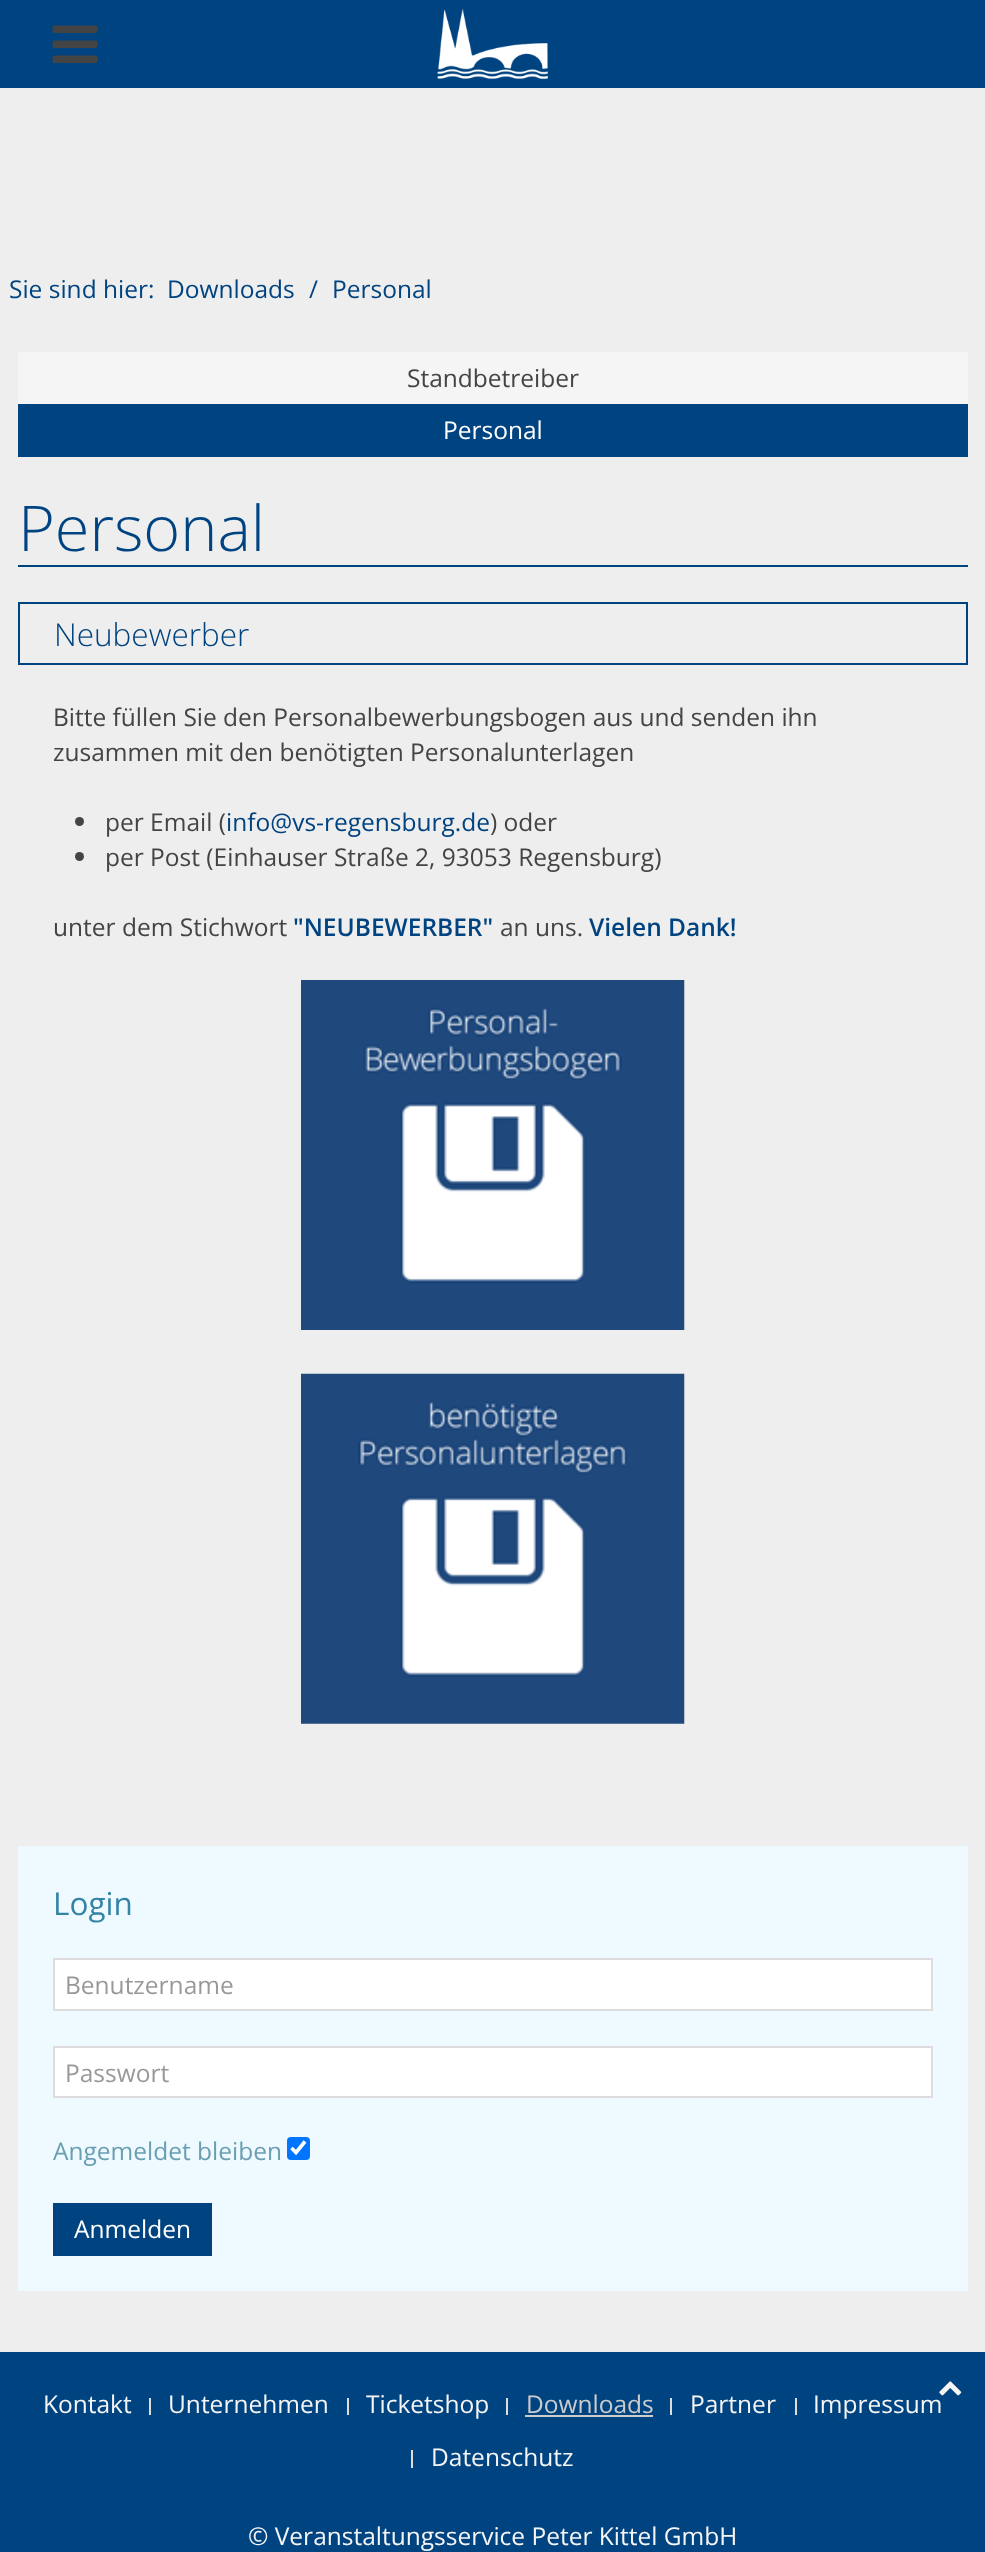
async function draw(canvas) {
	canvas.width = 985;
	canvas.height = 2552;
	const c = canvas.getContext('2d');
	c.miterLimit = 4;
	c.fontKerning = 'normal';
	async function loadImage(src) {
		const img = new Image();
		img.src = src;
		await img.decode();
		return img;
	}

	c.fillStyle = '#eee';
	c.fillRect(0, 0, 985, 2552);
	c.fillStyle = '#004381';
	c.fillRect(0, 0, 985, 88);
	c.drawImage(await loadImage('img1.png'), 437, 8, 111, 71);
	c.drawImage(await loadImage('img2.png'), 52, 25, 46, 38);
	c.font = '24.5px Open Sans';
	for (const [text, x, y] of [
		['Sie sind hier:', 9, 298],
		['Downloads', 167, 298],
		['/', 309, 298],
		['Personal', 332, 298],
	]) {
		c.fillText(text, x, y);
	}
	c.fillStyle = '#f5f5f5';
	c.fillRect(18, 352, 950, 52);
	c.fillStyle = '#444';
	c.fillText('Standbetreiber', 407, 387);
	c.fillStyle = '#004381';
	c.fillRect(18, 404, 950, 53);
	c.fillStyle = '#fff';
	c.fillText('Personal', 443, 439);
	c.fillStyle = '#004381';
	c.fillRect(18, 565, 950, 2);
	c.font = '300 63px Open Sans';
	c.fillText('Personal', 18, 551);
	c.strokeStyle = '#004381';
	c.lineWidth = 2;
	c.strokeRect(19, 603, 948, 61);
	c.font = '300 31.5px Open Sans';
	c.fillText('Neubewerber', 54, 646);
	c.font = '24.5px Open Sans';
	c.fillStyle = '#444';
	c.fillText('Bitte füllen Sie den Personalbewerbungsbogen aus und senden ihn', 53, 726);
	c.fillText('zusammen mit den benötigten Personalunterlagen', 53, 761);
	c.beginPath();
	c.arc(79.5, 821.5, 4.5, 0, 2 * Math.PI);
	c.fill();
	c.fillText('per Email (', 105, 831);
	c.fillStyle = '#004381';
	c.fillText('info@vs-regensburg.de', 226, 831);
	c.fillStyle = '#444';
	c.fillText(') oder', 490, 831);
	c.beginPath();
	c.arc(79.5, 856.5, 4.5, 0, 2 * Math.PI);
	c.fill();
	c.fillText('per Post (Einhauser Straße 2, 93053 Regensburg)', 105, 866);
	c.fillText('unter dem Stichwort', 53, 936);
	c.font = '600 24.5px Open Sans';
	c.fillStyle = '#004381';
	c.fillText('"NEUBEWERBER"', 293, 936);
	c.font = '24.5px Open Sans';
	c.fillStyle = '#444';
	c.fillText('an uns.', 500, 936);
	c.font = '600 24.5px Open Sans';
	c.fillStyle = '#004381';
	c.fillText('Vielen Dank!', 589, 936);
	c.drawImage(await loadImage('img3.png'), 301, 980, 384, 350);
	c.drawImage(await loadImage('img4.png'), 301, 1373, 384, 351);
	c.fillStyle = '#eefaff';
	c.fillRect(18, 1846, 950, 445);
	c.font = '31.5px Open Sans';
	c.fillStyle = '#3484a4';
	c.fillText('Login', 53, 1915);
	c.fillStyle = '#fff';
	c.beginPath();
	c.rect(54, 1959, 878, 51);
	c.fill();
	c.strokeStyle = '#ddd';
	c.stroke();
	c.font = '24.5px Open Sans';
	c.fillStyle = '#999';
	c.fillText('Benutzername', 65, 1994);
	c.fillStyle = '#fff';
	c.beginPath();
	c.rect(54, 2047, 878, 50);
	c.fill();
	c.stroke();
	c.fillStyle = '#999';
	c.fillText('Passwort', 65, 2082);
	c.fillStyle = '#699eb3';
	c.fillText('Angemeldet bleiben', 53, 2160);
	c.fillStyle = '#0075ff';
	c.beginPath();
	c.roundRect(287, 2137, 23, 23, 4);
	c.fill();
	c.beginPath();
	c.moveTo(291.5, 2148);
	c.lineTo(296, 2152.5);
	c.lineTo(305, 2141.5);
	c.strokeStyle = '#fff';
	c.lineWidth = 3.6;
	c.stroke();
	c.fillStyle = '#004381';
	c.fillRect(53, 2203, 159, 53);
	c.fillStyle = '#fff';
	c.fillText('Anmelden', 74, 2238);
	c.fillStyle = '#004381';
	c.fillRect(0, 2352, 985, 200);
	c.fillStyle = '#f5f5f5';
	c.fillText('Impressum', 813, 2413);
	c.drawImage(await loadImage('img5.png'), 939, 2381, 23, 15);
	c.fillText('Kontakt', 43, 2413);
	c.fillStyle = '#ddd';
	c.fillRect(149, 2398, 2, 17);
	c.fillStyle = '#f5f5f5';
	c.fillText('Unternehmen', 168, 2413);
	c.fillStyle = '#ddd';
	c.fillRect(347, 2398, 2, 17);
	c.fillStyle = '#f5f5f5';
	c.fillText('Ticketshop', 366, 2413);
	c.fillStyle = '#ddd';
	c.fillRect(506, 2398, 2, 17);
	c.fillStyle = '#ccc';
	c.fillText('Downloads', 526, 2413);
	c.fillRect(525, 2415, 128, 2);
	c.fillStyle = '#ddd';
	c.fillRect(670, 2398, 2, 17);
	c.fillStyle = '#f5f5f5';
	c.fillText('Partner', 690, 2413);
	c.fillStyle = '#ddd';
	c.fillRect(795, 2398, 2, 17);
	c.fillRect(411, 2450, 2, 18);
	c.fillStyle = '#f5f5f5';
	c.fillText('Datenschutz', 431, 2466);
	c.fillText('© Veranstaltungsservice Peter Kittel GmbH', 248, 2545);
}

draw(document.querySelector('canvas'));
